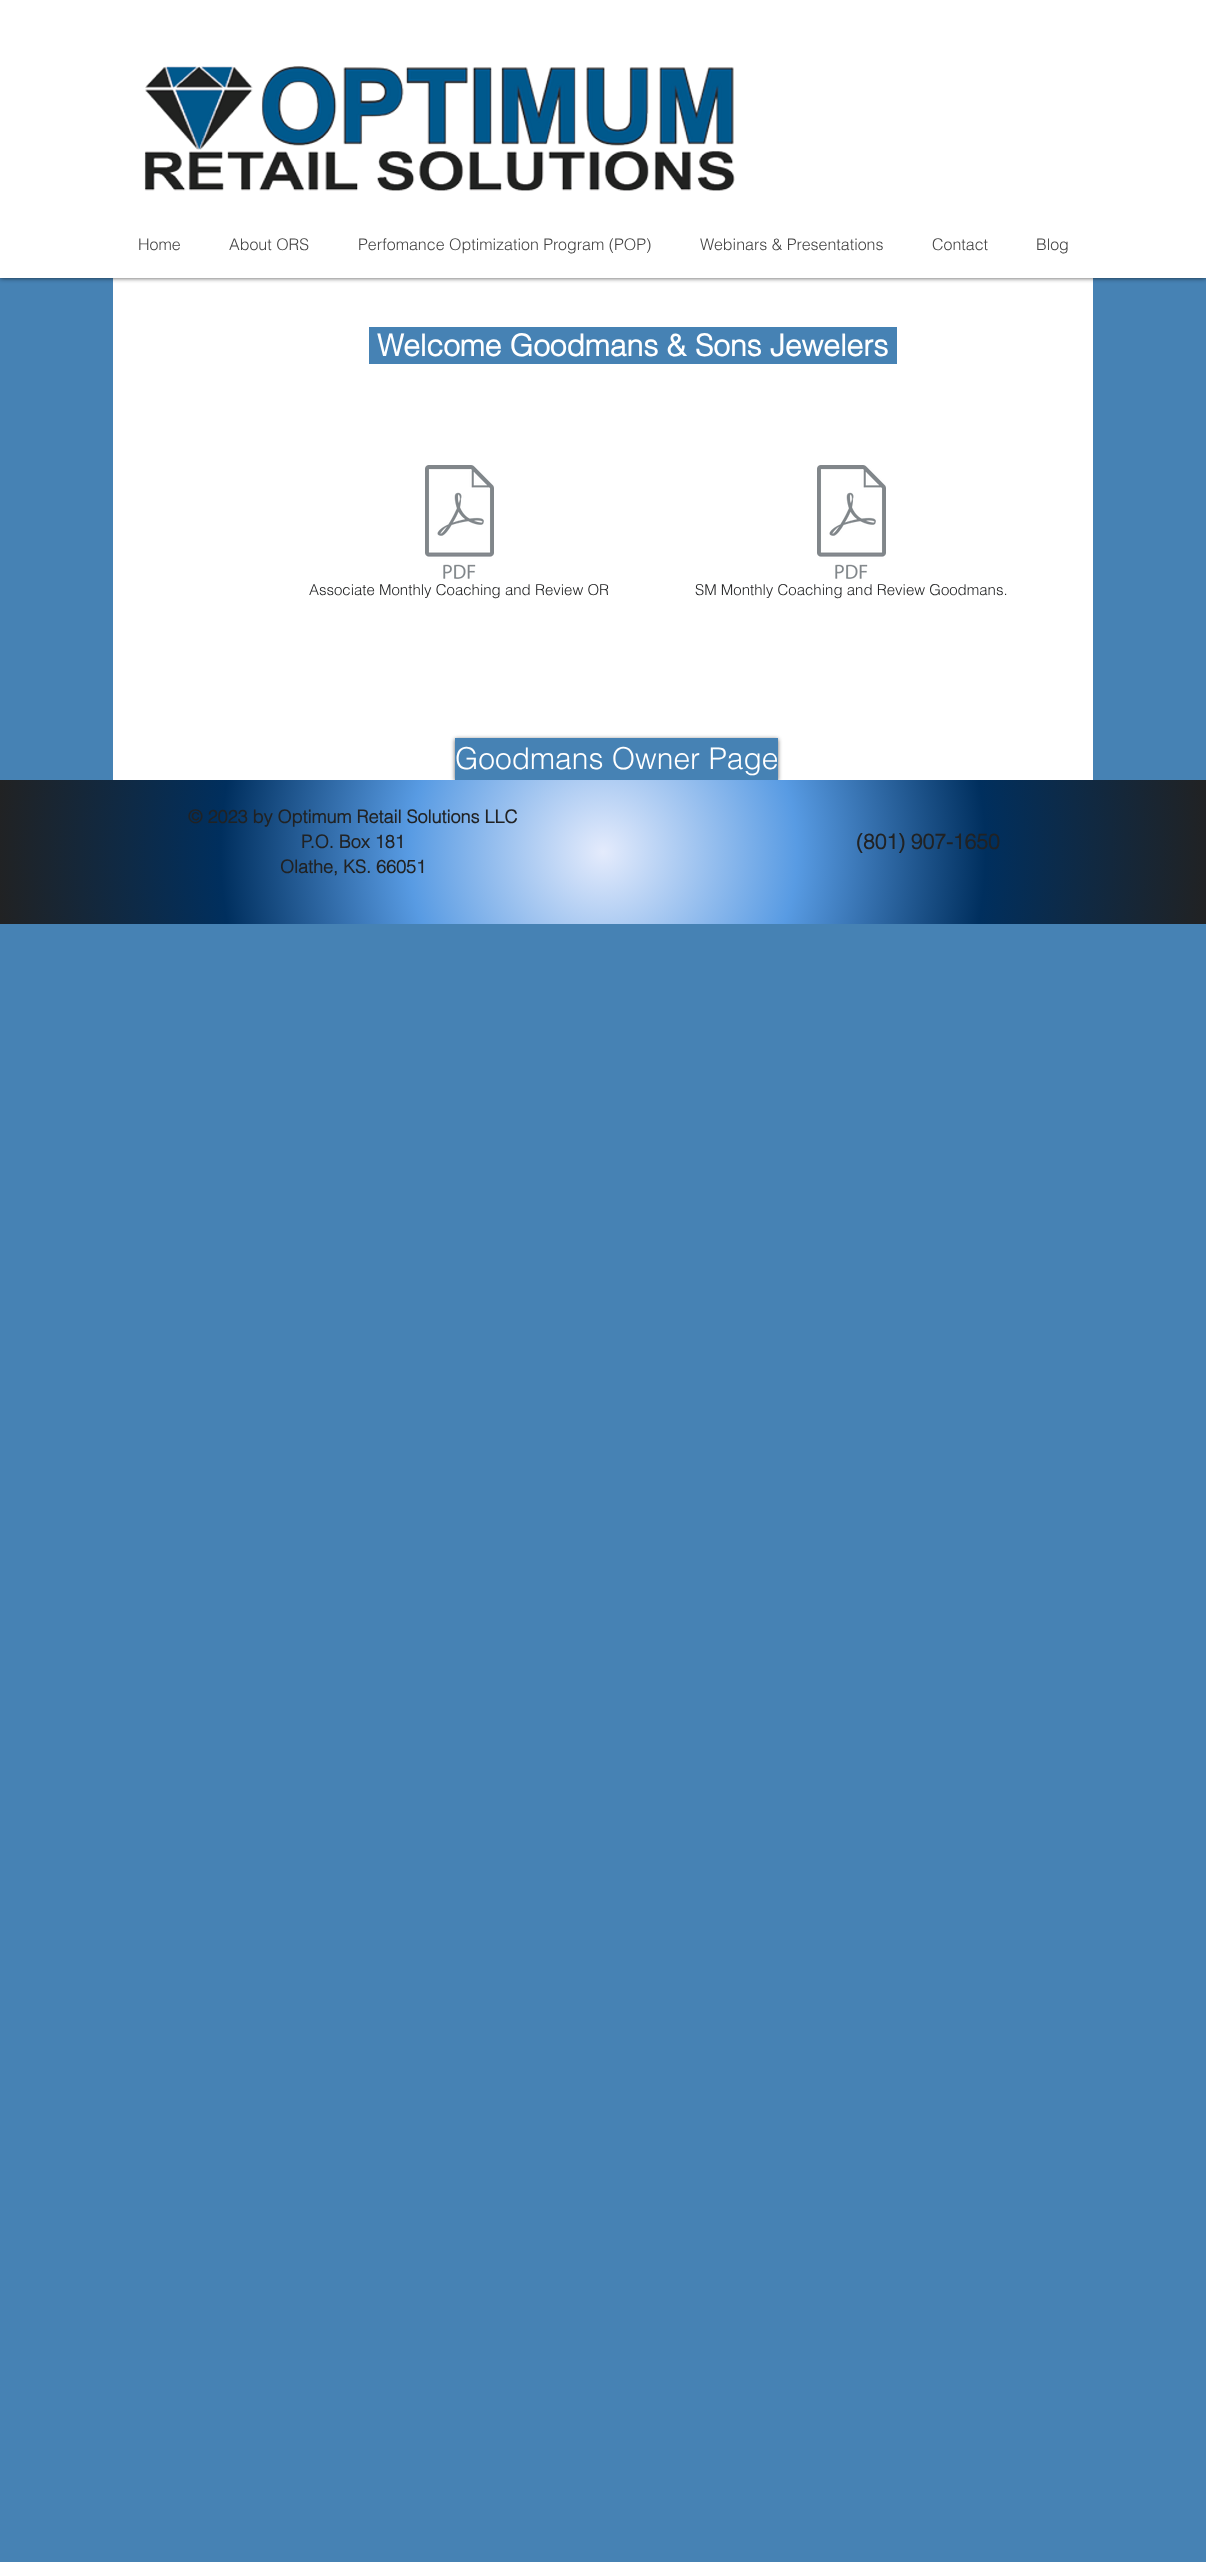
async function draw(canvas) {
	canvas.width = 1206;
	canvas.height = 2562;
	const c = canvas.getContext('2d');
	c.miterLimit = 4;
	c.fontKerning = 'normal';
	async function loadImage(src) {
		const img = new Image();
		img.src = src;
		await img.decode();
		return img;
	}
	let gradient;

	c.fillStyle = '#4682b4';
	c.fillRect(0, 0, 1206, 2562);
	c.fillStyle = '#fff';
	c.fillRect(113, 278, 980, 502);
	c.fillStyle = '#000000b3';
	c.filter = 'blur(2.5px)';
	c.beginPath();
	c.rect(0, 0, 1206, 278);
	c.fill();
	c.filter = 'none';
	c.fillStyle = '#fff';
	c.fillRect(0, 0, 1206, 278);
	c.drawImage(await loadImage('img1.png'), 144, 66, 591, 125);
	c.font = '300 16px helvetica';
	c.fillStyle = '#444';
	for (const [text, x, y] of [
		['Home', 138, 250],
		['About ORS', 229, 250],
		['Perfomance Optimization Program (POP)', 358, 250],
		['Webinars & Presentations', 700, 250],
		['Contact', 932, 250],
		['Blog', 1036, 250],
	]) {
		c.fillText(text, x, y);
	}
	c.fillStyle = '#4682b4';
	c.fillRect(369, 327, 528, 37);
	c.font = 'bold 30px helvetica';
	c.fillStyle = '#fff';
	c.fillText('Welcome Goodmans & Sons Jewelers', 377, 356);
	c.drawImage(await loadImage('img2.png'), 425, 465, 69, 114);
	c.font = '300 15px helvetica';
	c.fillStyle = '#212223';
	c.fillText('Associate Monthly Coaching and Review OR', 309, 595);
	c.drawImage(await loadImage('img2.png'), 817, 465, 69, 114);
	c.fillText('SM Monthly Coaching and Review Goodmans.', 695, 595);
	c.fillStyle = '#00000099';
	c.filter = 'blur(2px)';
	c.beginPath();
	c.rect(455, 739, 323, 42);
	c.fill();
	c.filter = 'none';
	c.fillStyle = '#4682b4';
	c.fillRect(455, 738, 323, 42);
	c.font = '300 30px helvetica';
	c.fillStyle = '#fff';
	c.fillText('Goodmans Owner Page', 455, 769);
	gradient = c.createRadialGradient(603, 852, 0, 603, 852, 607);
	gradient.addColorStop(0, '#e4ebfc');
	gradient.addColorStop(0.32, '#589be3');
	gradient.addColorStop(0.63, '#002f5e');
	gradient.addColorStop(0.78, '#0e2a46');
	gradient.addColorStop(1, '#212223');
	c.fillStyle = gradient;
	c.fillRect(0, 780, 1206, 144);
	c.font = 'bold 18px helvetica';
	c.fillStyle = '#212223';
	for (const [text, x, y] of [
		['© 2023 by Optimum Retail Solutions LLC', 188, 823],
		['P.O. Box 181', 301, 848],
		['Olathe, KS. 66051', 280, 873],
	]) {
		c.fillText(text, x, y);
	}
	c.font = 'bold 21px helvetica';
	c.fillText('(801) 907-1650', 856, 849);
}

draw(document.querySelector('canvas'));
